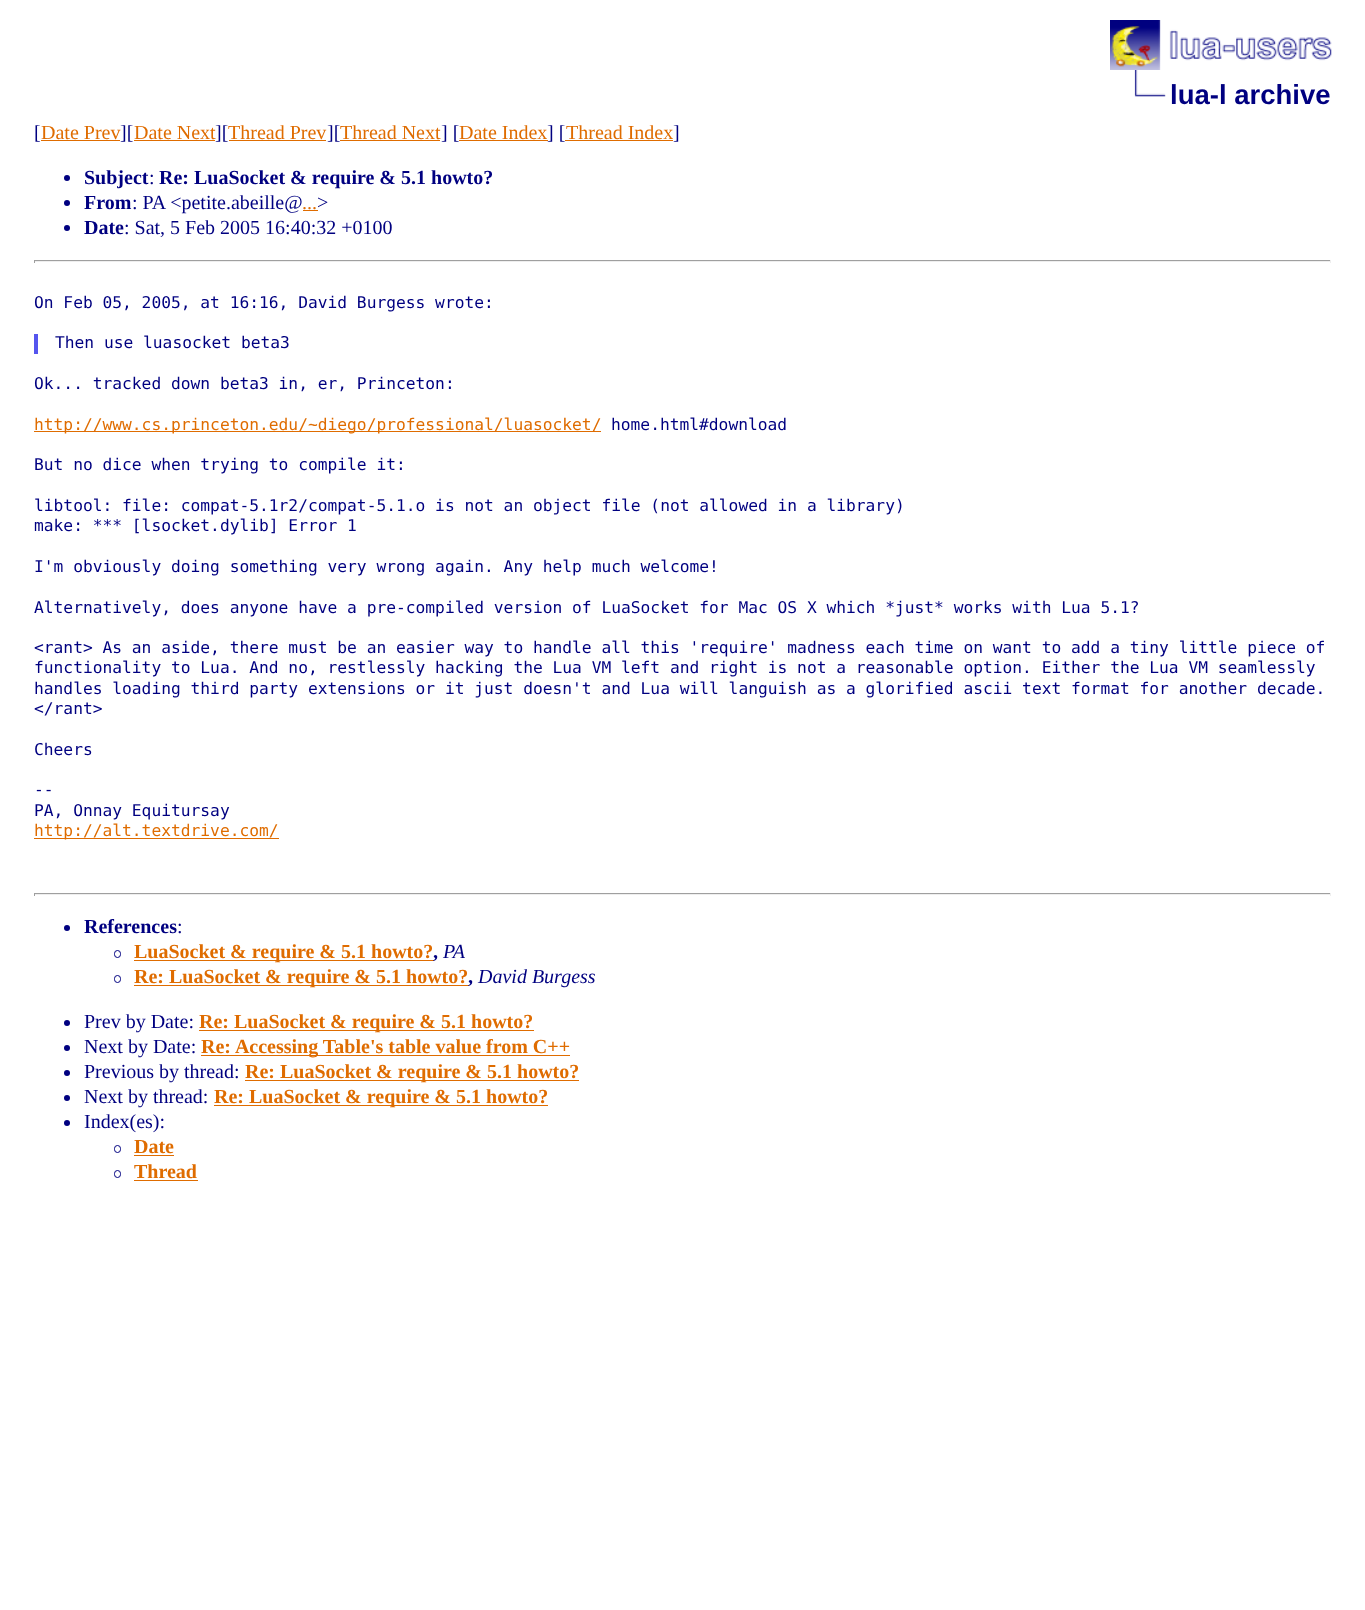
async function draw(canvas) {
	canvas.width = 1365;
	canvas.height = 1610;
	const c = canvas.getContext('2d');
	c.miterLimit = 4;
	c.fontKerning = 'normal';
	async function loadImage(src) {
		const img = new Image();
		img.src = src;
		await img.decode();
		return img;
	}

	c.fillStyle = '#fff';
	c.fillRect(0, 0, 1365, 1610);
	c.drawImage(await loadImage('img1.png'), 1110, 20, 222, 50);
	c.drawImage(await loadImage('img2.png'), 1134, 70, 32, 27);
	c.font = 'bold 27.5px Liberation Sans';
	c.fillStyle = '#000080';
	c.fillText('lua-l archive', 1170, 104);
	c.font = '20px Liberation Serif';
	c.fillText('[', 34, 139);
	c.fillStyle = '#df6c00';
	c.fillText('Date Prev', 41, 139);
	c.fillRect(41, 140, 79, 1);
	c.fillStyle = '#000080';
	c.fillText('][', 120, 139);
	c.fillStyle = '#df6c00';
	c.fillText('Date Next', 134, 139);
	c.fillRect(134, 140, 81, 1);
	c.fillStyle = '#000080';
	c.fillText('][', 215, 139);
	c.fillStyle = '#df6c00';
	c.fillText('Thread Prev', 228, 139);
	c.fillRect(229, 140, 97, 1);
	c.fillStyle = '#000080';
	c.fillText('][', 327, 139);
	c.fillStyle = '#df6c00';
	c.fillText('Thread Next', 340, 139);
	c.fillRect(340, 140, 100, 1);
	c.fillStyle = '#000080';
	c.fillText('] [', 441, 139);
	c.fillStyle = '#df6c00';
	c.fillText('Date Index', 459, 139);
	c.fillRect(459, 140, 89, 1);
	c.fillStyle = '#000080';
	c.fillText('] [', 547, 139);
	c.fillStyle = '#df6c00';
	c.fillText('Thread Index', 566, 139);
	c.fillRect(565, 140, 108, 1);
	c.fillStyle = '#000080';
	c.fillText(']', 673, 139);
	c.beginPath();
	c.arc(67, 178, 3, 0, 2 * Math.PI);
	c.fill();
	c.font = 'bold 20px Liberation Serif';
	c.fillText('Subject', 84, 184);
	c.font = '20px Liberation Serif';
	c.fillText(':', 149, 184);
	c.font = 'bold 20px Liberation Serif';
	c.fillText('Re: LuaSocket & require & 5.1 howto?', 159, 184);
	c.beginPath();
	c.arc(67, 203, 3, 0, 2 * Math.PI);
	c.fill();
	c.fillText('From', 84, 209);
	c.font = '20px Liberation Serif';
	c.fillText(': PA <petite.abeille@', 132, 209);
	c.fillText('>', 317, 209);
	c.fillStyle = '#df6c00';
	c.fillText('...', 302, 209);
	c.fillRect(303, 210, 15, 1);
	c.fillStyle = '#000080';
	c.beginPath();
	c.arc(67, 228, 3, 0, 2 * Math.PI);
	c.fill();
	c.font = 'bold 20px Liberation Serif';
	c.fillText('Date', 84, 234);
	c.font = '20px Liberation Serif';
	c.fillText(': Sat, 5 Feb 2005 16:40:32 +0100', 124, 234);
	for (const [x, y, w, h, color] of [
		[34, 260, 1297, 1, '#9f9f9f'],
		[1330, 260, 1, 3, '#eee'],
		[34, 261, 1297, 1, '#eee'],
		[34, 260, 1, 3, '#9f9f9f'],
	]) {
		c.fillStyle = color;
		c.fillRect(x, y, w, h);
	}
	c.font = '16.25px DejaVu Sans Mono';
	c.fillStyle = '#000080';
	c.fillText('On Feb 05, 2005, at 16:16, David Burgess wrote:', 34, 308);
	c.fillStyle = '#55e';
	c.fillRect(34, 334, 4, 20);
	c.fillStyle = '#000080';
	c.fillText('Then use luasocket beta3', 55, 348);
	c.fillText('Ok... tracked down beta3 in, er, Princeton:', 34, 389);
	c.fillStyle = '#df6c00';
	c.fillRect(34, 431, 567, 1);
	c.fillText('http://www.cs.princeton.edu/~diego/professional/luasocket/', 34, 430);
	c.fillStyle = '#000080';
	for (const [text, x, y] of [
		['home.html#download', 611, 430],
		['But no dice when trying to compile it:', 34, 470],
		['libtool: file: compat-5.1r2/compat-5.1.o is not an object file (not allowed in a library)', 34, 511],
		['make: *** [lsocket.dylib] Error 1', 34, 531],
		['I\'m obviously doing something very wrong again. Any help much welcome!', 34, 572],
		['Alternatively, does anyone have a pre-compiled version of LuaSocket for Mac OS X which *just* works with Lua 5.1?', 34, 613],
		['<rant> As an aside, there must be an easier way to handle all this \'require\' madness each time on want to add a tiny little piece of', 34, 653],
		['functionality to Lua. And no, restlessly hacking the Lua VM left and right is not a reasonable option. Either the Lua VM seamlessly', 34, 673],
		['handles loading third party extensions or it just doesn\'t and Lua will languish as a glorified ascii text format for another decade.', 34, 694],
		['<\/rant>', 34, 714],
		['Cheers', 34, 755],
		['--', 34, 795],
		['PA, Onnay Equitursay', 34, 816],
	]) {
		c.fillText(text, x, y);
	}
	c.fillStyle = '#df6c00';
	c.fillRect(34, 838, 245, 1);
	c.fillText('http://alt.textdrive.com/', 34, 836);
	for (const [x, y, w, h, color] of [
		[34, 893, 1297, 1, '#9f9f9f'],
		[1330, 893, 1, 3, '#eee'],
		[34, 894, 1297, 1, '#eee'],
		[34, 893, 1, 3, '#9f9f9f'],
	]) {
		c.fillStyle = color;
		c.fillRect(x, y, w, h);
	}
	c.fillStyle = '#000080';
	c.beginPath();
	c.arc(67, 928, 3, 0, 2 * Math.PI);
	c.fill();
	c.font = 'bold 20px Liberation Serif';
	c.fillText('References', 84, 933);
	c.font = '20px Liberation Serif';
	c.fillText(':', 177, 933);
	c.beginPath();
	c.roundRect(114.5, 950.5, 6, 7, 3);
	c.strokeStyle = '#000080';
	c.stroke();
	c.fillStyle = '#df6c00';
	c.fillRect(134, 960, 300, 1);
	c.font = 'bold 20px Liberation Serif';
	c.fillText('LuaSocket & require & 5.1 howto?', 134, 958);
	c.fillStyle = '#000080';
	c.fillText(',', 433, 958);
	c.font = 'italic 20px Liberation Serif';
	c.fillText('PA', 443, 958);
	c.beginPath();
	c.roundRect(114.5, 975.5, 6, 7, 3);
	c.stroke();
	c.fillStyle = '#df6c00';
	c.fillRect(134, 985, 335, 1);
	c.font = 'bold 20px Liberation Serif';
	c.fillText('Re: LuaSocket & require & 5.1 howto?', 134, 983);
	c.fillStyle = '#000080';
	c.fillText(',', 468, 983);
	c.font = 'italic 20px Liberation Serif';
	c.fillText('David Burgess', 478, 983);
	c.beginPath();
	c.arc(67, 1023, 3, 0, 2 * Math.PI);
	c.fill();
	c.font = '20px Liberation Serif';
	c.fillText('Prev by Date:', 84, 1028);
	c.fillStyle = '#df6c00';
	c.fillRect(199, 1030, 335, 1);
	c.font = 'bold 20px Liberation Serif';
	c.fillText('Re: LuaSocket & require & 5.1 howto?', 199, 1028);
	c.fillStyle = '#000080';
	c.beginPath();
	c.arc(67, 1048, 3, 0, 2 * Math.PI);
	c.fill();
	c.font = '20px Liberation Serif';
	c.fillText('Next by Date:', 84, 1053);
	c.fillStyle = '#df6c00';
	c.fillRect(201, 1055, 369, 1);
	c.font = 'bold 20px Liberation Serif';
	c.fillText('Re: Accessing Table\'s table value from C++', 201, 1053);
	c.fillStyle = '#000080';
	c.beginPath();
	c.arc(67, 1073, 3, 0, 2 * Math.PI);
	c.fill();
	c.font = '20px Liberation Serif';
	c.fillText('Previous by thread:', 84, 1078);
	c.fillStyle = '#df6c00';
	c.fillRect(245, 1080, 334, 1);
	c.font = 'bold 20px Liberation Serif';
	c.fillText('Re: LuaSocket & require & 5.1 howto?', 245, 1078);
	c.fillStyle = '#000080';
	c.beginPath();
	c.arc(67, 1098, 3, 0, 2 * Math.PI);
	c.fill();
	c.font = '20px Liberation Serif';
	c.fillText('Next by thread:', 84, 1103);
	c.fillStyle = '#df6c00';
	c.fillRect(214, 1105, 334, 1);
	c.font = 'bold 20px Liberation Serif';
	c.fillText('Re: LuaSocket & require & 5.1 howto?', 214, 1103);
	c.fillStyle = '#000080';
	c.beginPath();
	c.arc(67, 1123, 3, 0, 2 * Math.PI);
	c.fill();
	c.font = '20px Liberation Serif';
	c.fillText('Index(es):', 84, 1128);
	c.beginPath();
	c.roundRect(114.5, 1145.5, 6, 7, 3);
	c.stroke();
	c.font = 'bold 20px Liberation Serif';
	c.fillStyle = '#df6c00';
	c.fillText('Date', 134, 1153);
	c.fillRect(134, 1155, 40, 1);
	c.beginPath();
	c.roundRect(114.5, 1170.5, 6, 7, 3);
	c.stroke();
	c.fillText('Thread', 134, 1178);
	c.fillRect(134, 1180, 64, 1);
}

draw(document.querySelector('canvas'));
